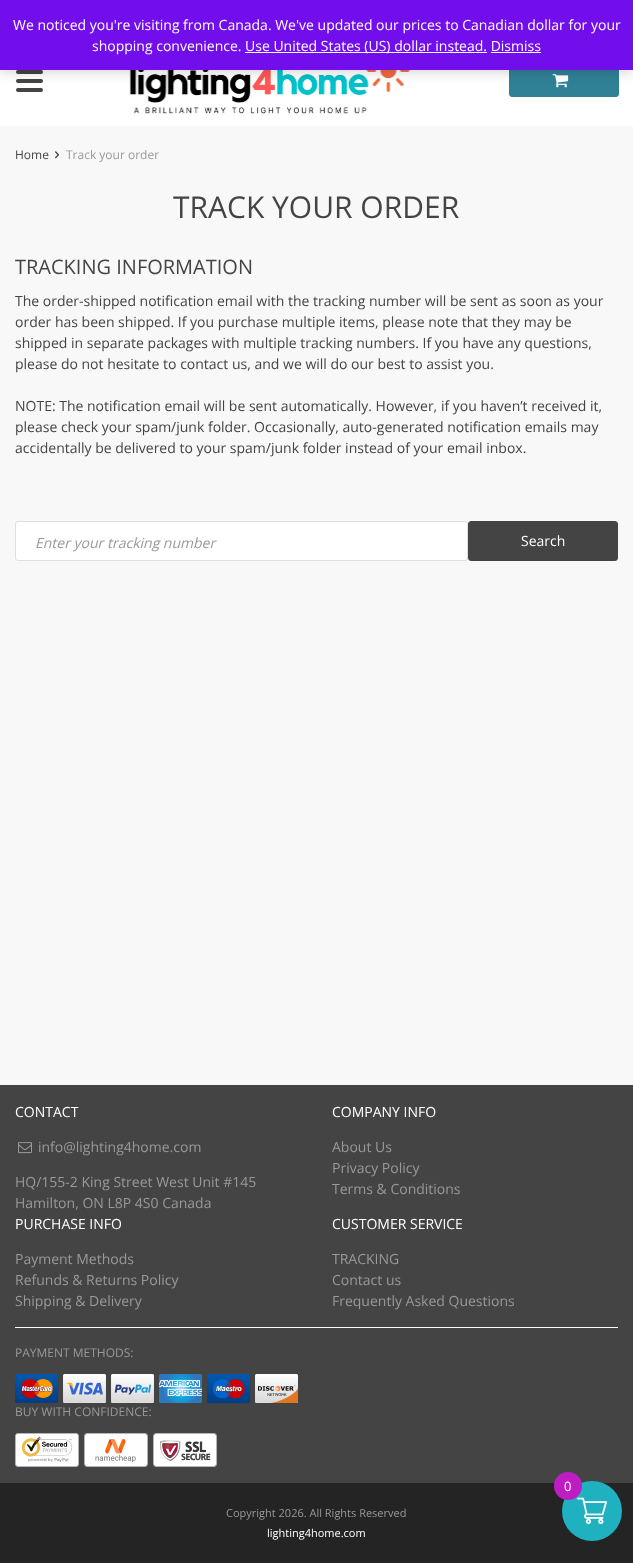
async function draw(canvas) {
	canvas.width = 633;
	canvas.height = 1563;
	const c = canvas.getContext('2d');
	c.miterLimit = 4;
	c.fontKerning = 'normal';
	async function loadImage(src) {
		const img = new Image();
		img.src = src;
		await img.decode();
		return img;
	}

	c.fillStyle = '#f8f8f8';
	c.fillRect(0, 0, 633, 1563);
	c.fillStyle = '#fff';
	c.fillRect(0, 70, 633, 56);
	c.fillStyle = '#444';
	c.beginPath();
	c.roundRect(16, 70, 27, 4, 2);
	c.fill();
	c.beginPath();
	c.roundRect(16, 79, 27, 4, 2);
	c.fill();
	c.beginPath();
	c.roundRect(16, 88, 27, 4, 2);
	c.fill();
	c.drawImage(await loadImage('img1.png'), 129, 70, 281, 44);
	c.fillStyle = '#308196';
	c.beginPath();
	c.roundRect(509.5, 65.5, 109, 31, 2.5);
	c.fill();
	c.strokeStyle = '#308196';
	c.stroke();
	c.drawImage(await loadImage('img2.png'), 552, 74, 17, 14);
	c.fillStyle = '#00000033';
	c.filter = 'blur(7px)';
	c.beginPath();
	c.rect(0, 1, 633, 70);
	c.fill();
	c.filter = 'none';
	c.fillStyle = '#720eec';
	c.fillRect(0, 0, 633, 70);
	c.font = '14px Open Sans';
	c.fillStyle = '#fff';
	c.fillText('We noticed you\'re visiting from Canada. We\'ve updated our prices to Canadian dollar for your', 13, 30);
	c.fillText('shopping convenience.', 92, 51);
	c.fillStyle = '#fcfbfe';
	c.fillRect(245, 52, 242, 1);
	c.fillStyle = '#fff';
	c.fillText('Use United States (US) dollar instead. Dismiss', 245, 51);
	c.fillStyle = '#fcfbfe';
	c.fillRect(491, 52, 50, 1);
	c.font = '12px Open Sans';
	c.fillStyle = '#444';
	c.fillText('Home', 15, 159);
	c.drawImage(await loadImage('img3.png'), 55, 151, 4, 8);
	c.fillStyle = '#999';
	c.fillText('Track your order', 66, 159);
	c.font = '30px Open Sans';
	c.fillStyle = '#444';
	c.fillText('TRACK YOUR ORDER', 173, 218);
	c.font = '20px Open Sans';
	c.fillText('TRACKING INFORMATION', 15, 274);
	c.font = '14px Open Sans';
	for (const [text, x, y] of [
		['The order-shipped notification email with the tracking number will be sent as soon as your', 15, 306],
		['order has been shipped. If you purchase multiple items, please note that they may be', 15, 327],
		['shipped in separate packages with multiple tracking numbers. If you have any questions,', 15, 348],
		['please do not hesitate to contact us, and we will do our best to assist you.', 15, 369],
		['NOTE: The notification email will be sent automatically. However, if you haven’t received it,', 15, 411],
		['please check your spam/junk folder. Occasionally, auto-generated notification emails may', 15, 432],
		['accidentally be delivered to your spam/junk folder instead of your email inbox.', 15, 453],
	]) {
		c.fillText(text, x, y);
	}
	c.fillStyle = '#fff';
	c.beginPath();
	c.roundRect(15.5, 521.5, 452, 39, 2.5);
	c.fill();
	c.strokeStyle = '#dfdfdf';
	c.stroke();
	c.fillStyle = '#444';
	c.beginPath();
	c.roundRect(468.5, 521.5, 149, 39, 2.5);
	c.fill();
	c.strokeStyle = '#444';
	c.stroke();
	c.fillStyle = '#fff';
	c.fillText('Search', 521, 546);
	c.font = 'italic 14px Open Sans';
	c.fillStyle = '#999';
	c.fillText('Enter your tracking number', 35, 548);
	c.fillStyle = '#444';
	c.fillRect(0, 1085, 633, 398);
	c.font = '14px Open Sans';
	c.fillStyle = '#fff';
	c.fillText('CONTACT', 15, 1117);
	c.drawImage(await loadImage('img4.png'), 18, 1142, 14, 12);
	c.fillStyle = '#999';
	for (const [text, x, y] of [
		['info@lighting4home.com', 38, 1152],
		['HQ/155-2 King Street West Unit #145', 15, 1187],
		['Hamilton, ON L8P 4S0 Canada', 15, 1208],
	]) {
		c.fillText(text, x, y);
	}
	c.fillStyle = '#fff';
	c.fillText('COMPANY INFO', 332, 1117);
	c.fillStyle = '#999';
	for (const [text, x, y] of [
		['About Us', 332, 1152],
		['Privacy Policy', 332, 1173],
		['Terms & Conditions', 332, 1194],
	]) {
		c.fillText(text, x, y);
	}
	c.fillStyle = '#fff';
	c.fillText('PURCHASE INFO', 15, 1229);
	c.fillStyle = '#999';
	for (const [text, x, y] of [
		['Payment Methods', 15, 1264],
		['Refunds & Returns Policy', 15, 1285],
		['Shipping & Delivery', 15, 1306],
	]) {
		c.fillText(text, x, y);
	}
	c.fillStyle = '#fff';
	c.fillText('CUSTOMER SERVICE', 332, 1229);
	c.fillStyle = '#999';
	for (const [text, x, y] of [
		['TRACKING', 332, 1264],
		['Contact us', 332, 1285],
		['Frequently Asked Questions', 332, 1306],
	]) {
		c.fillText(text, x, y);
	}
	c.fillStyle = '#f8f8f8';
	c.fillRect(15, 1327, 603, 1);
	c.font = '12px Open Sans';
	c.fillStyle = '#999';
	c.fillText('PAYMENT METHODS:', 15, 1357);
	c.drawImage(await loadImage('img5.png'), 15, 1374, 43, 29);
	c.drawImage(await loadImage('img6.png'), 63, 1374, 43, 29);
	c.drawImage(await loadImage('img7.png'), 111, 1374, 43, 29);
	c.drawImage(await loadImage('img8.png'), 159, 1374, 43, 29);
	c.drawImage(await loadImage('img9.png'), 207, 1374, 43, 29);
	c.drawImage(await loadImage('img10.png'), 255, 1374, 43, 29);
	c.fillText('BUY WITH CONFIDENCE:', 15, 1416);
	c.fillStyle = '#fff';
	c.beginPath();
	c.roundRect(15.5, 1433.5, 63, 33, 2.5);
	c.fill();
	c.strokeStyle = '#b5b5b5';
	c.stroke();
	c.drawImage(await loadImage('img11.png'), 16, 1434, 62, 28);
	c.beginPath();
	c.roundRect(84.5, 1433.5, 63, 33, 2.5);
	c.stroke();
	c.drawImage(await loadImage('img12.png'), 85, 1434, 62, 32);
	c.beginPath();
	c.roundRect(153.5, 1433.5, 63, 33, 2.5);
	c.stroke();
	c.drawImage(await loadImage('img13.png'), 154, 1434, 62, 32);
	c.fillStyle = '#242424';
	c.fillRect(0, 1483, 633, 80);
	c.font = '11px Open Sans';
	c.fillStyle = '#999';
	c.fillText('Copyright 2026. All Rights Reserved', 226, 1517);
	c.fillStyle = '#fff';
	c.fillText('lighting4home.com', 267, 1537);
	c.fillStyle = '#20b1c1';
	c.beginPath();
	c.arc(592, 1511, 30, 0, 2 * Math.PI);
	c.fill();
	c.drawImage(await loadImage('img14.png'), 577, 1497, 30, 27);
	c.fillStyle = '#be1dc4';
	c.beginPath();
	c.arc(568, 1486, 14, 0, 2 * Math.PI);
	c.fill();
	c.font = '13px Open Sans';
	c.fillStyle = '#fff';
	c.fillText('0', 564, 1491);
}

draw(document.querySelector('canvas'));
